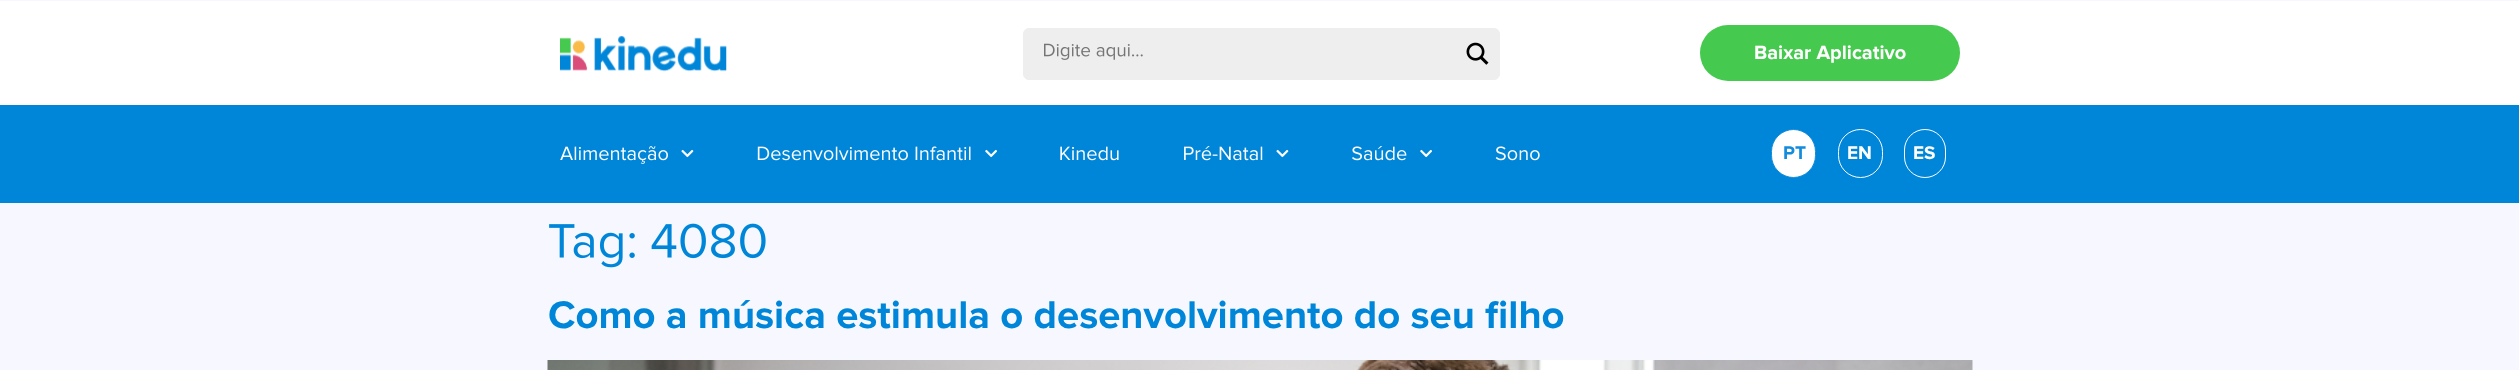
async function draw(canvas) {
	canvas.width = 2519;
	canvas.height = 370;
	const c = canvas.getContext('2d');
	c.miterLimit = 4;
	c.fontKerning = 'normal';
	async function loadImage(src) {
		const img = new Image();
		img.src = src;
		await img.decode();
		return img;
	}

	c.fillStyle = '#f7f8ff';
	c.fillRect(0, 0, 2519, 370);
	c.fillStyle = '#fff';
	c.fillRect(0, 1, 2519, 104);
	c.drawImage(await loadImage('img1.png'), 560, 36, 167, 36);
	c.fillStyle = '#eee';
	c.beginPath();
	c.roundRect(1023.5, 28.5, 476, 51, 5.5);
	c.fill();
	c.strokeStyle = '#eee';
	c.stroke();
	c.drawImage(await loadImage('img2.png'), 1044, 43, 99, 17);
	c.drawImage(await loadImage('img3.png'), 1466, 42, 23, 23);
	c.fillStyle = '#45c94e';
	c.beginPath();
	c.roundRect(1700, 25, 260, 56, 28);
	c.fill();
	c.font = 'bold 20px Proxima Nova';
	c.fillStyle = '#fff';
	c.fillText('Baixar Aplicativo', 1754, 59);
	c.fillStyle = '#0086d8';
	c.fillRect(0, 105, 2519, 98);
	c.drawImage(await loadImage('img4.png'), 560, 146, 108, 18);
	c.drawImage(await loadImage('img5.png'), 681, 149, 13, 9);
	c.drawImage(await loadImage('img6.png'), 757, 146, 214, 15);
	c.drawImage(await loadImage('img7.png'), 985, 149, 12, 9);
	c.drawImage(await loadImage('img8.png'), 1060, 146, 59, 15);
	c.drawImage(await loadImage('img9.png'), 1184, 146, 79, 15);
	c.drawImage(await loadImage('img5.png'), 1276, 149, 13, 9);
	c.drawImage(await loadImage('img10.png'), 1352, 146, 55, 15);
	c.drawImage(await loadImage('img7.png'), 1420, 149, 12, 9);
	c.drawImage(await loadImage('img11.png'), 1495, 146, 45, 15);
	c.fillStyle = '#fff';
	c.beginPath();
	c.roundRect(1771.5, 129.5, 44, 48, 22);
	c.fill();
	c.strokeStyle = '#148cdc';
	c.stroke();
	c.font = 'bold 19px Proxima Nova';
	c.fillStyle = '#148cdc';
	c.fillText('PT', 1783, 159);
	c.beginPath();
	c.roundRect(1838.5, 129.5, 44, 48, 22);
	c.strokeStyle = '#fff';
	c.stroke();
	c.fillStyle = '#fff';
	c.fillText('EN', 1847, 159);
	c.beginPath();
	c.roundRect(1904.5, 129.5, 41, 48, 20.5);
	c.stroke();
	c.fillText('ES', 1913, 159);
	c.drawImage(await loadImage('img12.png'), 549, 224, 86, 44);
	c.drawImage(await loadImage('img13.png'), 651, 223, 115, 36);
	c.font = 'bold 40px Proxima Nova';
	c.fillStyle = '#0086d8';
	c.fillText('Como a música estimula o desenvolvimento do seu filho', 548, 328);
	c.drawImage(await loadImage('img14.png'), 547, 360, 1426, 10);
}

draw(document.querySelector('canvas'));
